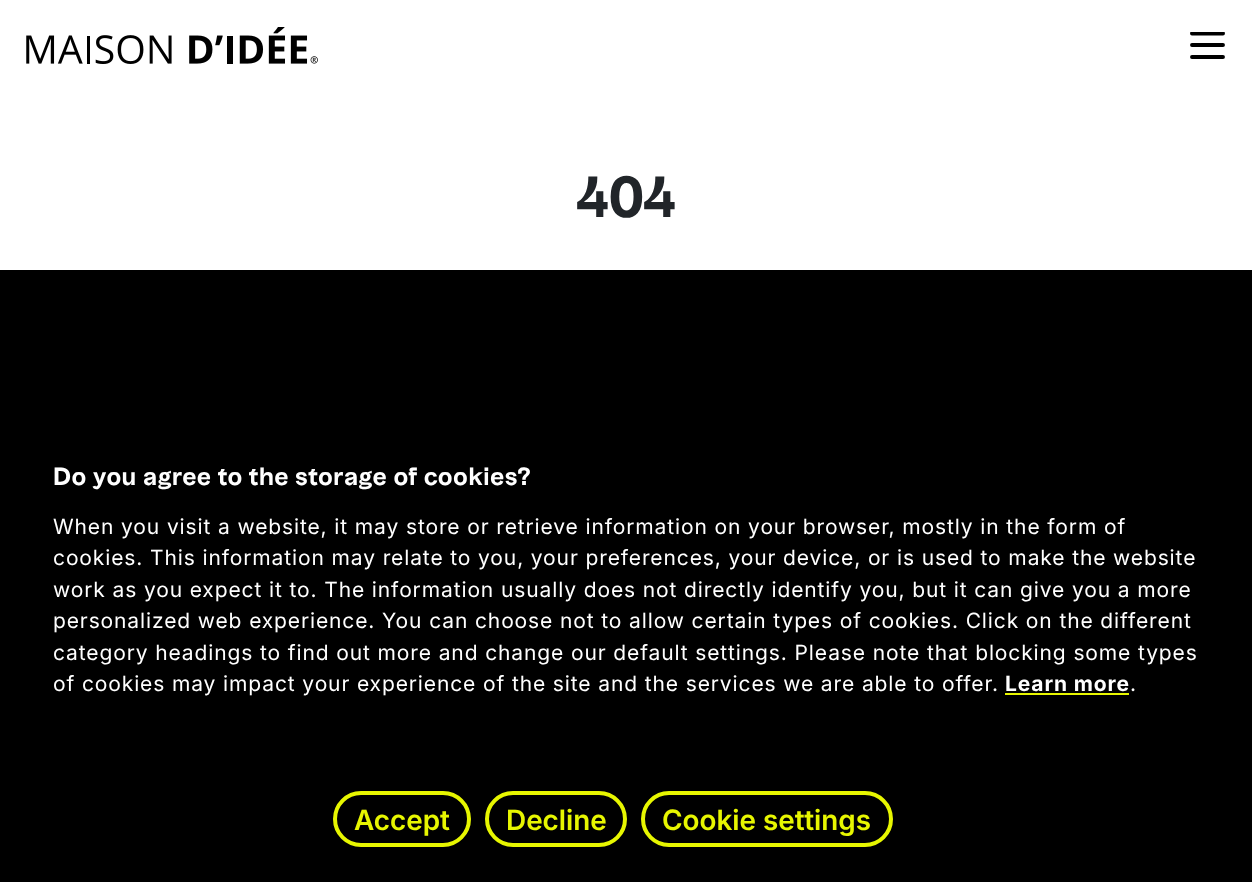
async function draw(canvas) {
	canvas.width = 1252;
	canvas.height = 882;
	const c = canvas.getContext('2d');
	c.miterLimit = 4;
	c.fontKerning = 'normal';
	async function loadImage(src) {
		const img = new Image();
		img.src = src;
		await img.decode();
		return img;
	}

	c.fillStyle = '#fff';
	c.fillRect(0, 0, 1252, 882);
	c.drawImage(await loadImage('img1.png'), 26, 27, 292, 37);
	c.save();
	c.beginPath();
	c.rect(1190, 32, 35, 28);
	c.clip();
	c.beginPath();
	c.moveTo(1192, 33.5);
	c.lineTo(1223, 33.5);
	c.moveTo(1192, 45);
	c.lineTo(1223, 45);
	c.moveTo(1192, 57);
	c.lineTo(1223, 57);
	c.strokeStyle = '#000';
	c.lineWidth = 3.9;
	c.lineCap = 'round';
	c.lineJoin = 'round';
	c.stroke();
	c.restore();
	c.font = 'bold 57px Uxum';
	c.fillStyle = '#212529';
	c.fillText('404', 577, 217);
	c.fillStyle = '#000';
	c.fillRect(0, 270, 1252, 612);
	c.letterSpacing = '0.88px';
	c.font = 'bold 24.5px Uxum';
	c.fillStyle = '#fff';
	c.fillText('Do you agree to the storage of cookies?', 53, 485);
	c.font = '21px Inter';
	for (const [text, x, y] of [
		['When you visit a website, it may store or retrieve information on your browser, mostly in the form of', 53, 534],
		['cookies. This information may relate to you, your preferences, your device, or is used to make the website', 53, 565],
		['work as you expect it to. The information usually does not directly identify you, but it can give you a more', 53, 597],
		['personalized web experience. You can choose not to allow certain types of cookies. Click on the different', 53, 628],
		['category headings to find out more and change our default settings. Please note that blocking some types', 53, 660],
		['of cookies may impact your experience of the site and the services we are able to offer.', 53, 691],
	]) {
		c.fillText(text, x, y);
	}
	c.font = 'bold 21px Inter';
	c.fillText('Learn more', 1005, 691);
	c.fillStyle = '#e7f600';
	c.fillRect(1005, 693, 124, 2);
	c.font = '21px Inter';
	c.fillStyle = '#fff';
	c.fillText('.', 1130, 691);
	c.beginPath();
	c.roundRect(335, 793, 134, 52, 26);
	c.strokeStyle = '#e7f600';
	c.lineWidth = 4;
	c.stroke();
	c.letterSpacing = '0px';
	c.font = '600 28px Inter';
	c.fillStyle = '#e7f600';
	c.fillText('Accept', 354, 830);
	c.beginPath();
	c.roundRect(487, 793, 138, 52, 26);
	c.stroke();
	c.fillText('Decline', 506, 830);
	c.beginPath();
	c.roundRect(643, 793, 248, 52, 26);
	c.stroke();
	c.fillText('Cookie settings', 662, 830);
}

draw(document.querySelector('canvas'));
